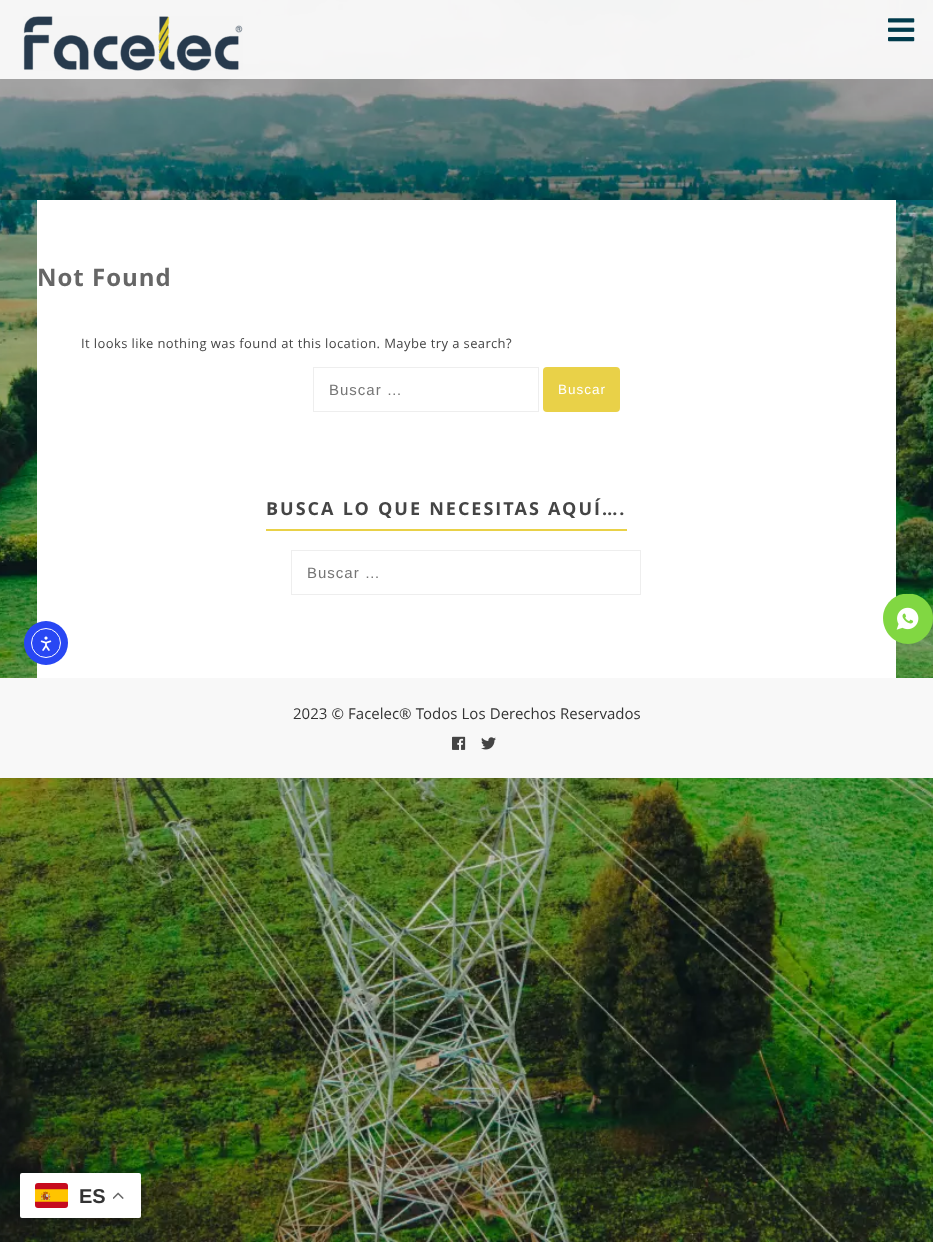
async function draw(canvas) {
	canvas.width = 933;
	canvas.height = 1242;
	const c = canvas.getContext('2d');
	c.miterLimit = 4;
	c.fontKerning = 'normal';
	async function loadImage(src) {
		const img = new Image();
		img.src = src;
		await img.decode();
		return img;
	}

	c.fillStyle = '#fff';
	c.fillRect(0, 0, 933, 1242);
	c.drawImage(await loadImage('img1.png'), 0, 0, 933, 1242);
	c.fillStyle = '#0000004d';
	c.fillRect(0, 0, 933, 200);
	c.fillStyle = '#ffffffe6';
	c.fillRect(0, 0, 933, 79);
	c.drawImage(await loadImage('img2.png'), 23, 16, 220, 55);
	c.drawImage(await loadImage('img3.png'), 888, 18, 27, 24);
	c.fillStyle = '#fff';
	c.fillRect(37, 200, 859, 478);
	c.letterSpacing = '1px';
	c.font = 'bold 24px Open Sans';
	c.fillStyle = '#666';
	c.fillText('Not Found', 37, 286);
	c.letterSpacing = '0.4px';
	c.font = '13px Open Sans';
	c.fillStyle = '#454545';
	c.fillText('It looks like nothing was found at this location. Maybe try a search?', 81, 348);
	c.strokeStyle = '#eee';
	c.strokeRect(313.5, 367.5, 225, 44);
	c.letterSpacing = '1px';
	c.font = '15px Liberation Sans';
	c.fillStyle = '#757575';
	c.fillText('Buscar …', 329, 395);
	c.fillStyle = '#e9d148';
	c.beginPath();
	c.roundRect(543, 367, 77, 45, 4);
	c.fill();
	c.font = '13.5px Liberation Sans';
	c.fillStyle = '#fff';
	c.fillText('Buscar', 558, 394);
	c.fillStyle = '#e9d148';
	c.fillRect(266, 529, 361, 2);
	c.letterSpacing = '2px';
	c.wordSpacing = '0.5px';
	c.font = 'bold 18px Open Sans';
	c.fillStyle = '#454545';
	c.fillText('BUSCA LO QUE NECESITAS AQUÍ….', 266, 515);
	c.strokeRect(291.5, 550.5, 349, 44);
	c.letterSpacing = '1px';
	c.wordSpacing = '0px';
	c.font = '15px Liberation Sans';
	c.fillStyle = '#757575';
	c.fillText('Buscar …', 307, 578);
	c.fillStyle = '#2847f3';
	c.beginPath();
	c.arc(46, 643, 22, 0, 2 * Math.PI);
	c.fill();
	c.beginPath();
	c.arc(46, 643, 14.5, 0, 2 * Math.PI);
	c.strokeStyle = '#fff';
	c.stroke();
	c.drawImage(await loadImage('img4.png'), 40, 636, 12, 15);
	c.fillStyle = '#81d742';
	c.beginPath();
	c.moveTo(913, 594);
	c.bezierCurveTo(924, 596, 933, 606, 933, 618);
	c.bezierCurveTo(933, 632, 922, 644, 908, 644);
	c.bezierCurveTo(894, 644, 883, 632, 883, 618);
	c.bezierCurveTo(883, 606, 892, 596, 903, 594);
	c.closePath();
	c.fill();
	c.drawImage(await loadImage('img5.png'), 896, 607, 23, 23);
	c.fillStyle = '#f8f8f8';
	c.fillRect(0, 678, 933, 100);
	c.letterSpacing = '0px';
	c.wordSpacing = '0.25px';
	c.font = '15px Open Sans';
	c.fillStyle = '#333';
	c.fillText('2023 © Facelec® Todos Los Derechos Reservados', 293, 719);
	c.drawImage(await loadImage('img6.png'), 452, 736, 14, 14);
	c.drawImage(await loadImage('img7.png'), 481, 737, 15, 13);
	c.fillStyle = '#00000026';
	c.filter = 'blur(7.5px)';
	c.beginPath();
	c.roundRect(20, 1178, 121, 45, 2);
	c.fill();
	c.filter = 'none';
	c.fillStyle = '#fff';
	c.beginPath();
	c.roundRect(20, 1173, 121, 45, 2);
	c.fill();
	c.drawImage(await loadImage('img8.png'), 35, 1183, 33, 25);
	c.wordSpacing = '0px';
	c.font = 'bold 20px Liberation Sans';
	c.fillStyle = '#333';
	c.fillText('ES', 79, 1203);
	c.drawImage(await loadImage('img9.png'), 113, 1192, 11, 7);
}

draw(document.querySelector('canvas'));
